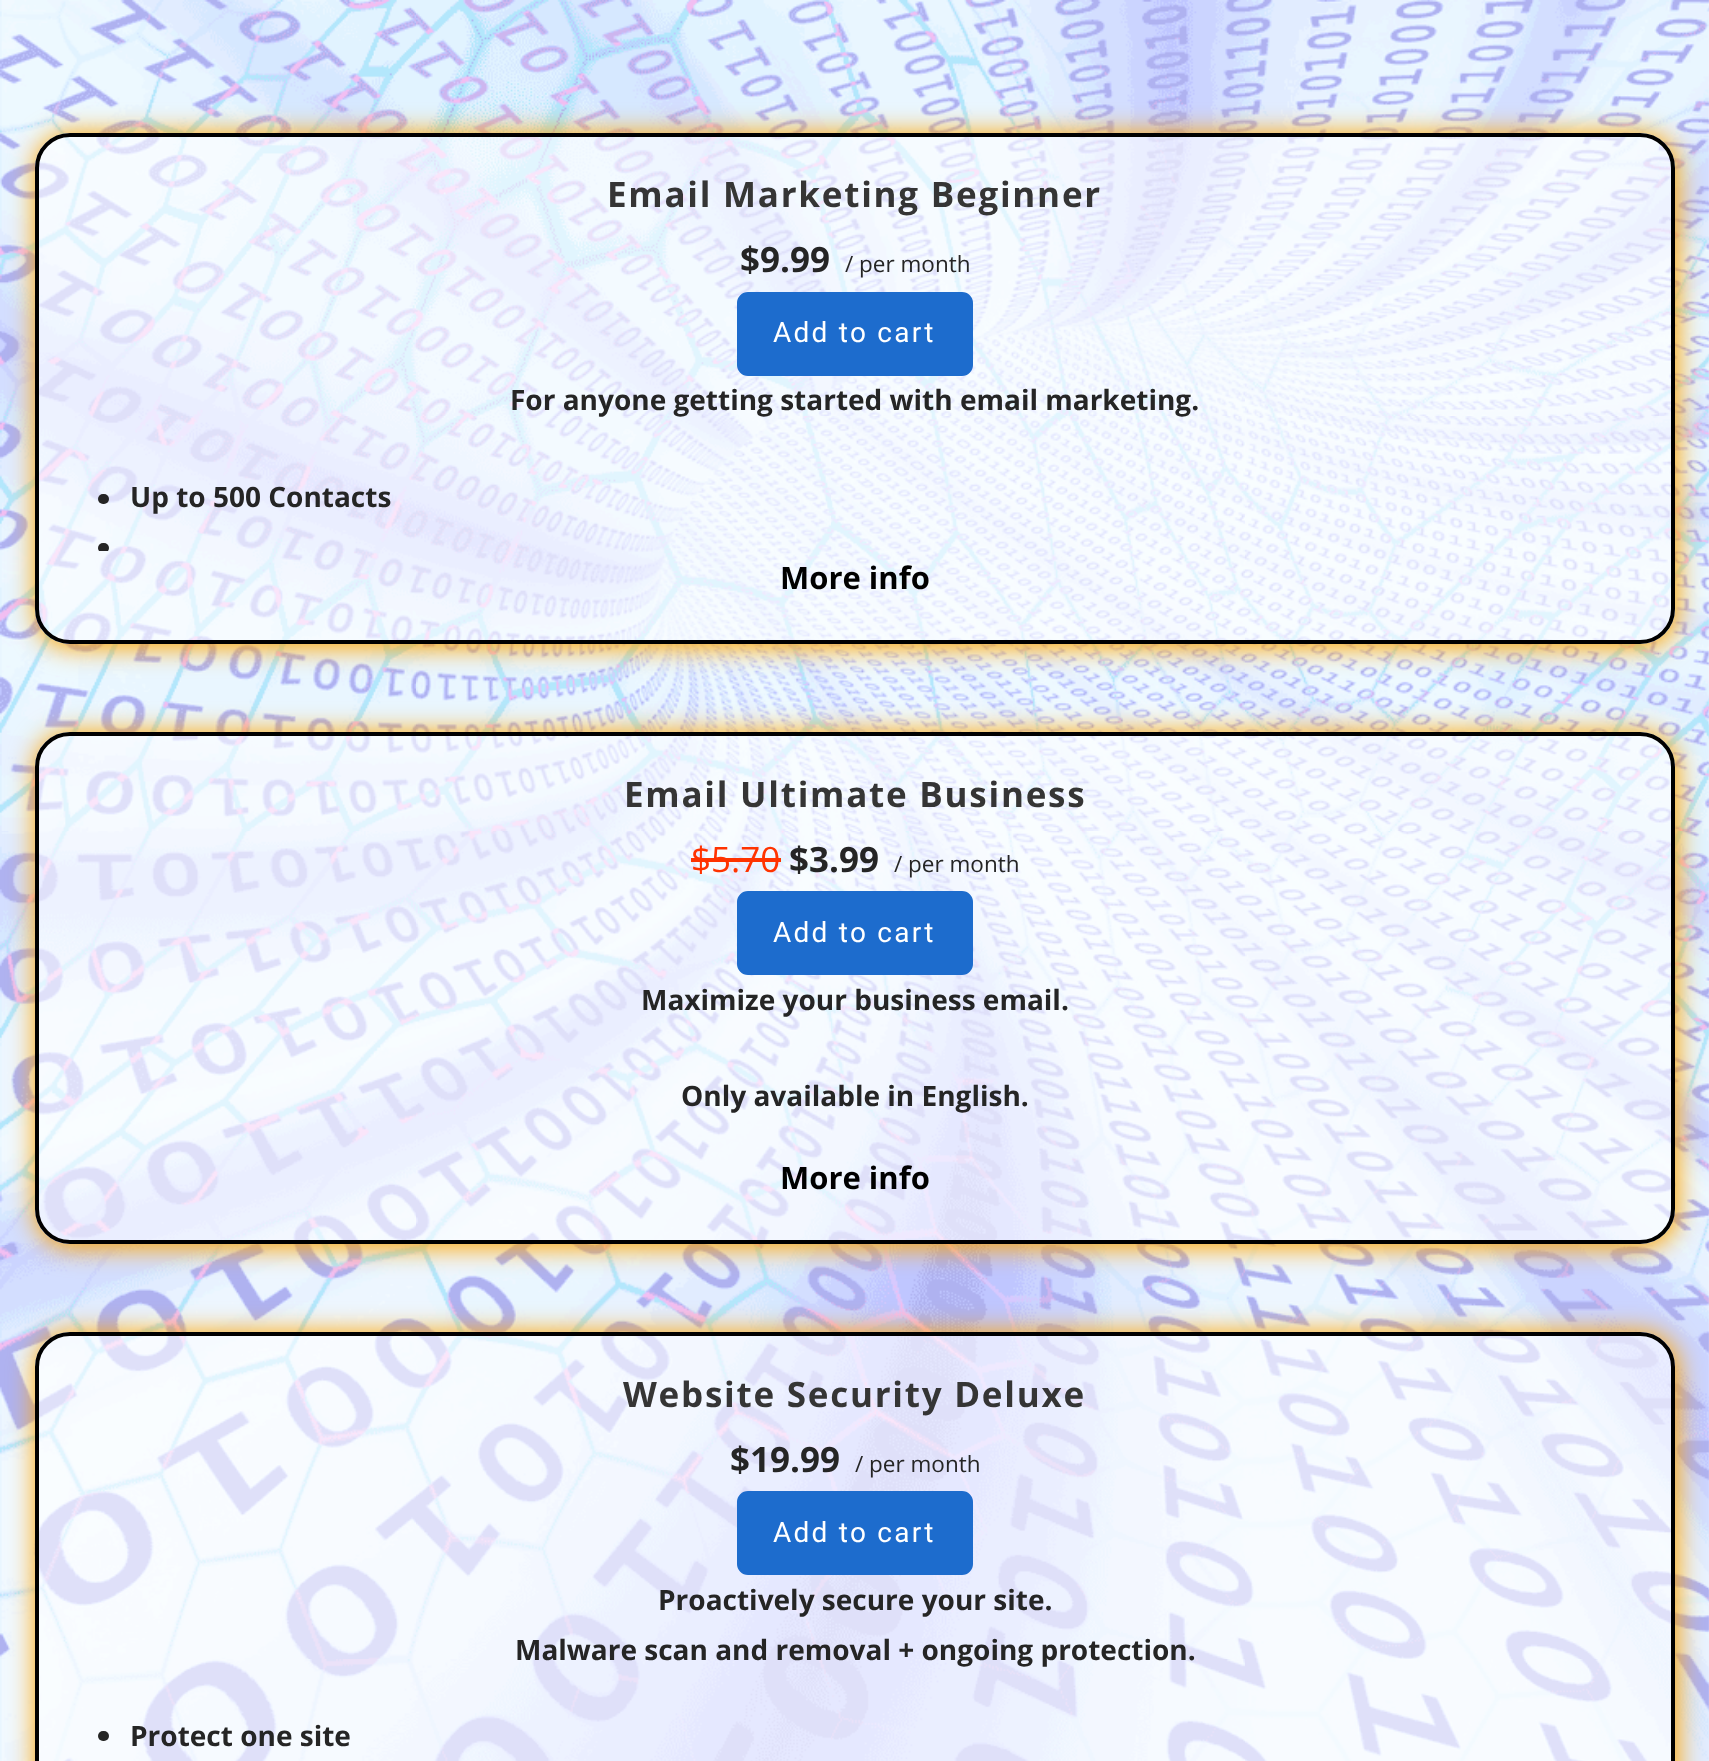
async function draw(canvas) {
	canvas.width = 1709;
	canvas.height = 1761;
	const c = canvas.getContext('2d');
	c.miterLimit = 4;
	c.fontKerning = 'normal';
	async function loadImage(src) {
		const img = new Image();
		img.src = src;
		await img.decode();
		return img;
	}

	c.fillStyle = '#fff';
	c.fillRect(0, 0, 1709, 1761);
	c.drawImage(await loadImage('img1.png'), 0, 0, 1709, 1761);
	c.save();
	c.beginPath();
	c.moveTo(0, 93);
	c.lineTo(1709, 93);
	c.lineTo(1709, 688);
	c.lineTo(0, 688);
	c.closePath();
	c.moveTo(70, 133);
	c.lineTo(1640, 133);
	c.bezierCurveTo(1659.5, 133, 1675, 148.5, 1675, 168);
	c.lineTo(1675, 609);
	c.bezierCurveTo(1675, 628.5, 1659.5, 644, 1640, 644);
	c.lineTo(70, 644);
	c.bezierCurveTo(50.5, 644, 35, 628.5, 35, 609);
	c.lineTo(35, 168);
	c.bezierCurveTo(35, 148.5, 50.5, 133, 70, 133);
	c.closePath();
	c.clip('evenodd');
	c.fillStyle = '#ffa500';
	c.filter = 'blur(13px)';
	c.beginPath();
	c.roundRect(35, 133, 1643, 515, 37);
	c.fill();
	c.filter = 'none';
	c.restore();
	c.fillStyle = '#ffffff99';
	c.beginPath();
	c.roundRect(37, 135, 1636, 507, 33);
	c.fill();
	c.strokeStyle = '#000';
	c.lineWidth = 4;
	c.stroke();
	c.letterSpacing = '1.75px';
	c.font = 'bold 35px Open Sans';
	c.fillStyle = '#353535';
	c.fillText('Email Marketing Beginner', 607, 207);
	c.letterSpacing = '0px';
	c.fillStyle = '#252525';
	c.fillText('$9.99', 740, 272);
	c.font = '22.5px Open Sans';
	c.fillText('/ per month', 845, 272);
	c.fillStyle = '#1d6ccd';
	c.beginPath();
	c.roundRect(738, 293, 234, 82, 10);
	c.fill();
	c.strokeStyle = '#1d6ccd';
	c.lineWidth = 2;
	c.stroke();
	c.letterSpacing = '2.25px';
	c.font = '28px Roboto';
	c.fillStyle = '#fff';
	c.fillText('Add to cart', 773, 342);
	c.letterSpacing = '0px';
	c.font = 'bold 28px Open Sans';
	c.fillStyle = '#252525';
	c.fillText('For anyone getting started with email marketing.', 510, 410);
	c.beginPath();
	c.roundRect(98, 494, 11, 10, 5);
	c.fill();
	c.fillText('Up to 500 Contacts', 130, 507);
	c.save();
	c.beginPath();
	c.rect(74, 376, 1562, 175);
	c.clip();
	c.beginPath();
	c.roundRect(98, 543, 11, 10, 5);
	c.fill();
	c.restore();
	c.font = 'bold 31px Open Sans';
	c.fillStyle = '#000';
	c.fillText('More info', 780, 589);
	c.save();
	c.beginPath();
	c.moveTo(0, 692);
	c.lineTo(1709, 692);
	c.lineTo(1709, 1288);
	c.lineTo(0, 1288);
	c.closePath();
	c.moveTo(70, 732);
	c.lineTo(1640, 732);
	c.bezierCurveTo(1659.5, 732, 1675, 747.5, 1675, 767);
	c.lineTo(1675, 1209);
	c.bezierCurveTo(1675, 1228.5, 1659.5, 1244, 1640, 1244);
	c.lineTo(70, 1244);
	c.bezierCurveTo(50.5, 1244, 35, 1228.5, 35, 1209);
	c.lineTo(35, 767);
	c.bezierCurveTo(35, 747.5, 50.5, 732, 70, 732);
	c.closePath();
	c.clip('evenodd');
	c.fillStyle = '#ffa500';
	c.filter = 'blur(13px)';
	c.beginPath();
	c.roundRect(35, 732, 1643, 516, 37);
	c.fill();
	c.filter = 'none';
	c.restore();
	c.fillStyle = '#ffffff99';
	c.beginPath();
	c.roundRect(37, 734, 1636, 508, 33);
	c.fill();
	c.strokeStyle = '#000';
	c.lineWidth = 4;
	c.stroke();
	c.letterSpacing = '1.75px';
	c.font = 'bold 35px Open Sans';
	c.fillStyle = '#353535';
	c.fillText('Email Ultimate Business', 624, 807);
	c.letterSpacing = '0px';
	c.font = '35px Open Sans';
	c.fillStyle = '#f30';
	c.fillText('$5.70', 691, 872);
	c.fillRect(691, 858, 90, 4);
	c.font = 'bold 35px Open Sans';
	c.fillStyle = '#252525';
	c.fillText('$3.99', 789, 872);
	c.font = '22.5px Open Sans';
	c.fillText('/ per month', 894, 872);
	c.fillStyle = '#1d6ccd';
	c.beginPath();
	c.roundRect(738, 892, 234, 82, 10);
	c.fill();
	c.strokeStyle = '#1d6ccd';
	c.lineWidth = 2;
	c.stroke();
	c.letterSpacing = '2.25px';
	c.font = '28px Roboto';
	c.fillStyle = '#fff';
	c.fillText('Add to cart', 773, 942);
	c.letterSpacing = '0px';
	c.font = 'bold 28px Open Sans';
	c.fillStyle = '#252525';
	c.fillText('Maximize your business email.', 641, 1010);
	c.fillText('Only available in English.', 681, 1106);
	c.font = 'bold 31px Open Sans';
	c.fillStyle = '#000';
	c.fillText('More info', 780, 1189);
	c.save();
	c.beginPath();
	c.moveTo(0, 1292);
	c.lineTo(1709, 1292);
	c.lineTo(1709, 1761);
	c.lineTo(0, 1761);
	c.closePath();
	c.moveTo(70, 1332);
	c.lineTo(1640, 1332);
	c.bezierCurveTo(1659.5, 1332, 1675, 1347.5, 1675, 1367);
	c.lineTo(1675, 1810);
	c.bezierCurveTo(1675, 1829.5, 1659.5, 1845, 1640, 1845);
	c.lineTo(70, 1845);
	c.bezierCurveTo(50.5, 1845, 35, 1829.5, 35, 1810);
	c.lineTo(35, 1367);
	c.bezierCurveTo(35, 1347.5, 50.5, 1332, 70, 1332);
	c.closePath();
	c.clip('evenodd');
	c.fillStyle = '#ffa500';
	c.filter = 'blur(13px)';
	c.beginPath();
	c.roundRect(35, 1332, 1643, 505, 37);
	c.fill();
	c.filter = 'none';
	c.restore();
	c.fillStyle = '#ffffff99';
	c.beginPath();
	c.roundRect(39, 1335, 1632, 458, 32);
	c.fill();
	c.beginPath();
	c.roundRect(37, 1334, 1636, 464, 33);
	c.strokeStyle = '#000';
	c.lineWidth = 4;
	c.stroke();
	c.letterSpacing = '1.75px';
	c.font = 'bold 35px Open Sans';
	c.fillStyle = '#353535';
	c.fillText('Website Security Deluxe', 623, 1407);
	c.letterSpacing = '0px';
	c.fillStyle = '#252525';
	c.fillText('$19.99', 730, 1472);
	c.font = '22.5px Open Sans';
	c.fillText('/ per month', 855, 1472);
	c.fillStyle = '#1d6ccd';
	c.beginPath();
	c.roundRect(738, 1492, 234, 82, 10);
	c.fill();
	c.strokeStyle = '#1d6ccd';
	c.lineWidth = 2;
	c.stroke();
	c.letterSpacing = '2.25px';
	c.font = '28px Roboto';
	c.fillStyle = '#fff';
	c.fillText('Add to cart', 773, 1542);
	c.letterSpacing = '0px';
	c.font = 'bold 28px Open Sans';
	c.fillStyle = '#252525';
	c.fillText('Proactively secure your site.', 658, 1610);
	c.fillText('Malware scan and removal + ongoing protection.', 515, 1660);
	c.beginPath();
	c.roundRect(98, 1731, 11, 10, 5);
	c.fill();
	c.fillText('Protect one site', 130, 1746);
}

draw(document.querySelector('canvas'));
